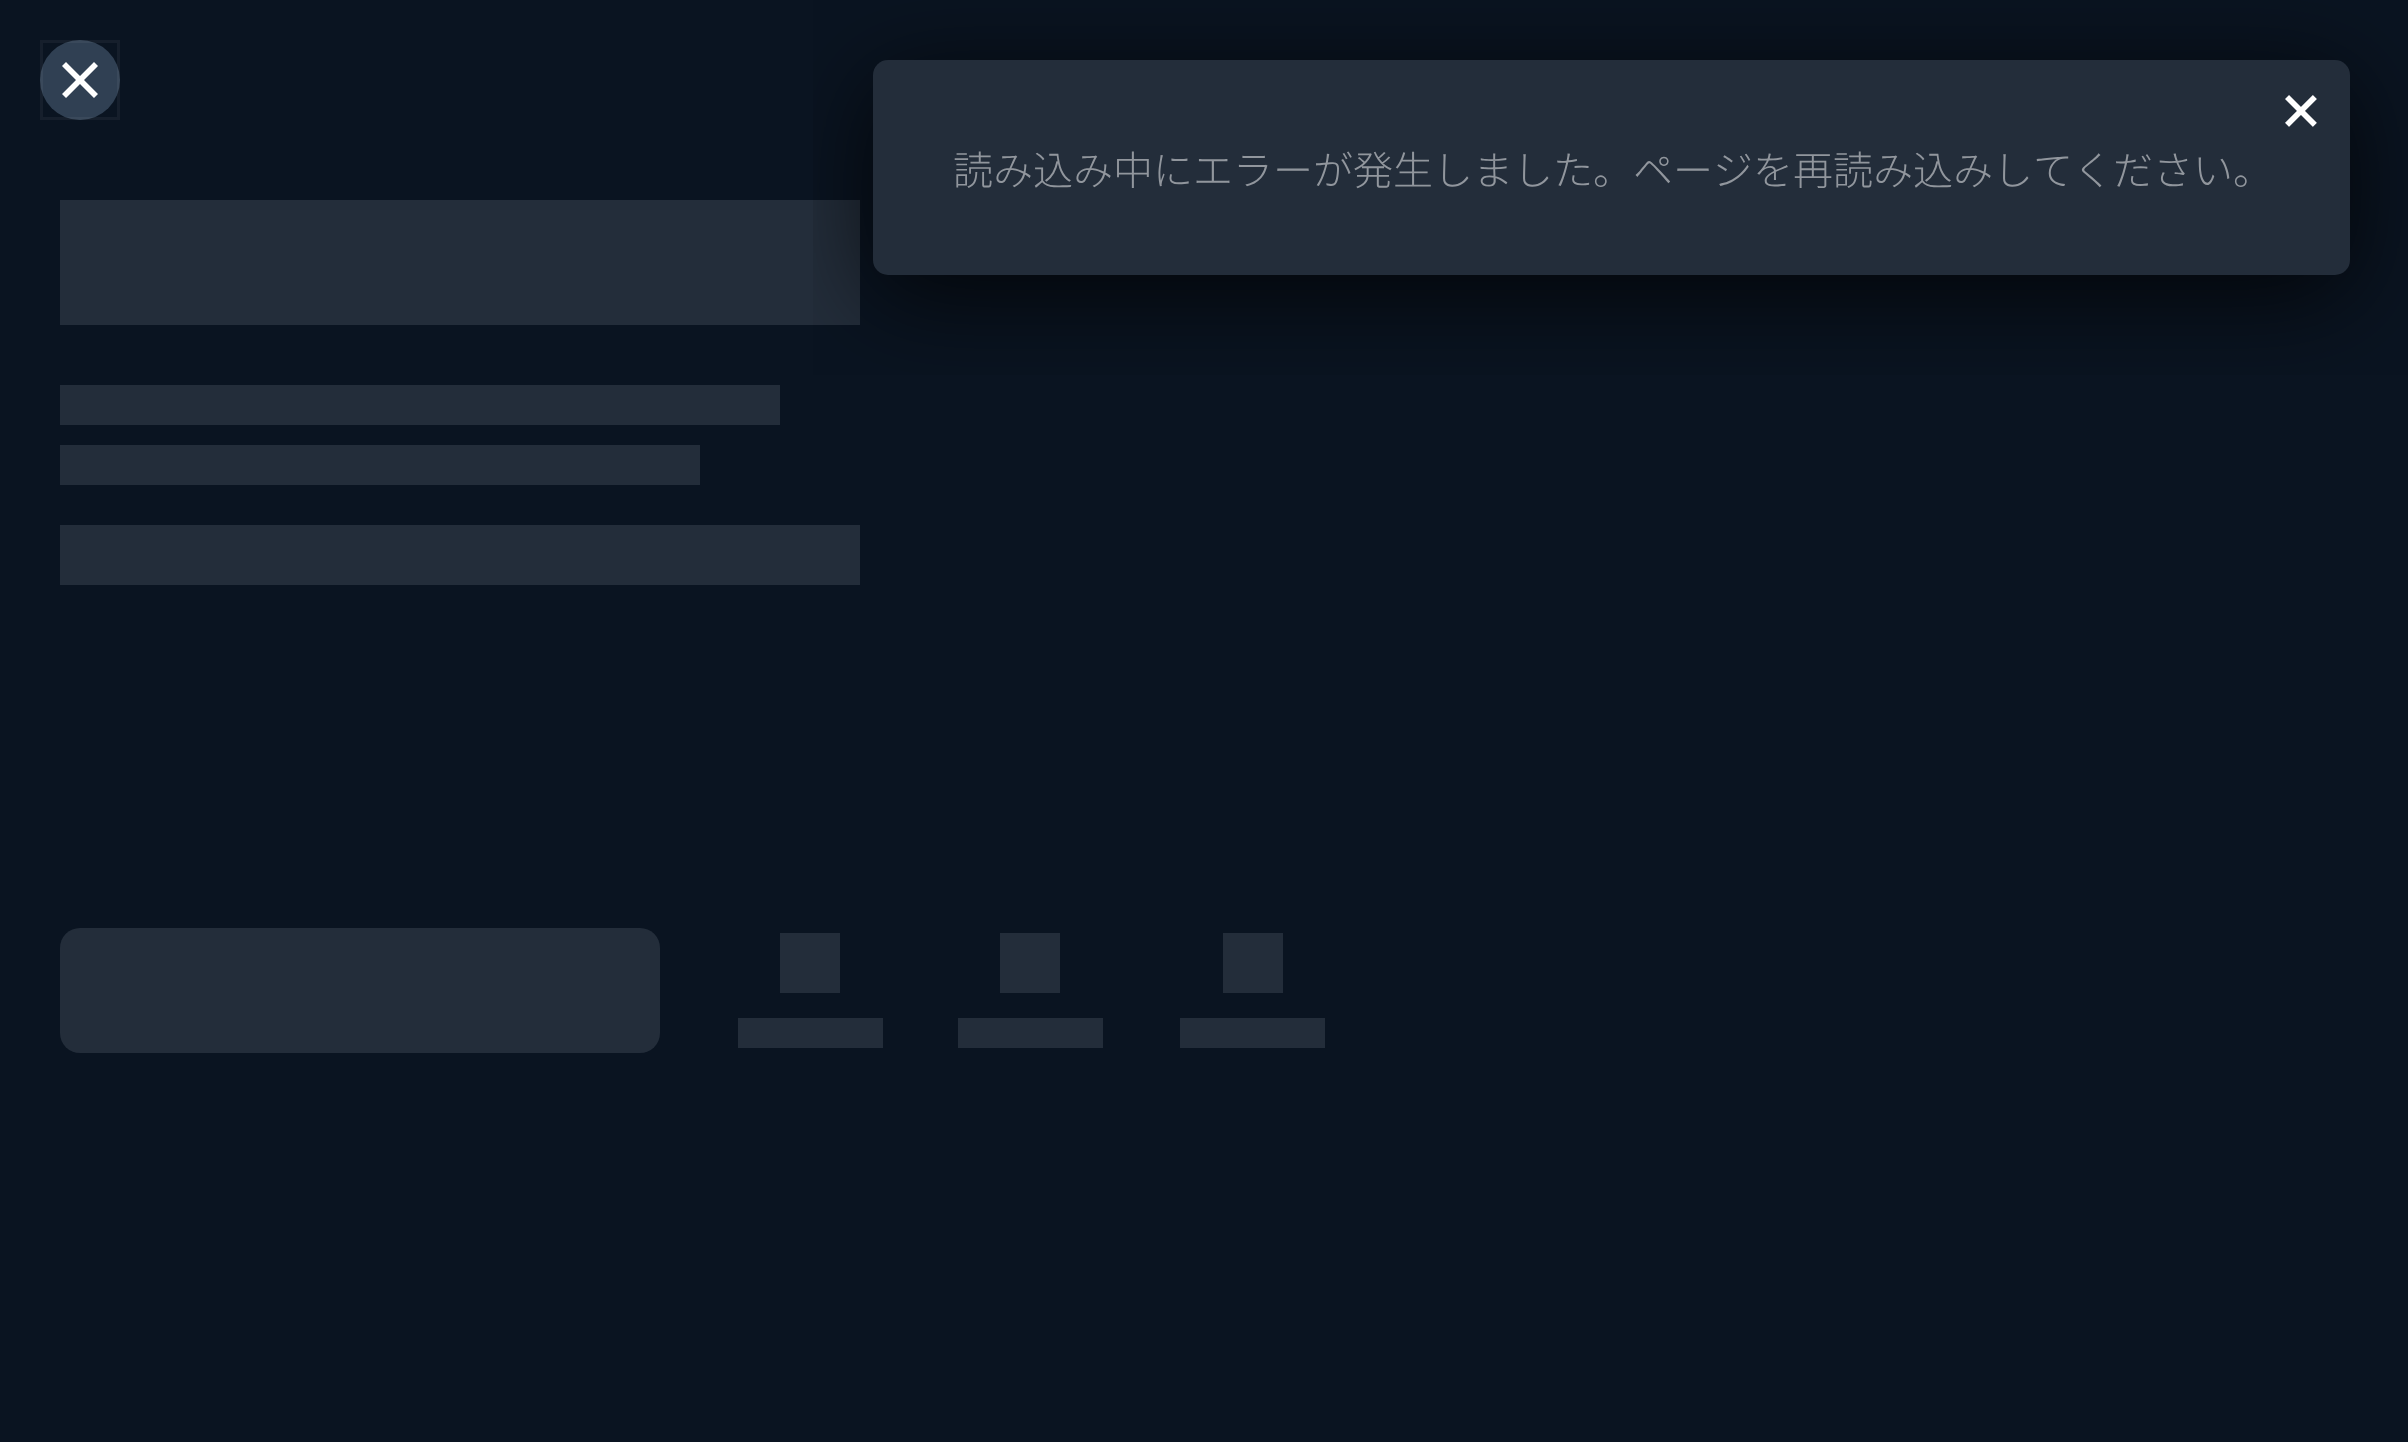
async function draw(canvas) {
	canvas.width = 2408;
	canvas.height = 1442;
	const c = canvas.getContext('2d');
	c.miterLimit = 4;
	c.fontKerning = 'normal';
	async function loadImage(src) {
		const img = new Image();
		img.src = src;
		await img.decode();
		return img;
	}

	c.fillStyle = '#0a1421';
	c.fillRect(0, 0, 2408, 1442);
	c.fillStyle = '#304053';
	c.beginPath();
	c.arc(80, 80, 40, 0, 2 * Math.PI);
	c.fill();
	c.strokeStyle = '#ffffff0d';
	c.lineWidth = 3;
	c.strokeRect(41.5, 41.5, 77, 77);
	c.fillStyle = '#fff';
	c.beginPath();
	c.moveTo(80, 84);
	c.lineTo(94, 98);
	c.lineTo(98, 94);
	c.lineTo(84, 80);
	c.lineTo(98, 66);
	c.lineTo(94, 62);
	c.lineTo(80, 76);
	c.lineTo(66, 62);
	c.lineTo(62, 66);
	c.lineTo(76, 80);
	c.lineTo(62, 94);
	c.lineTo(66, 98);
	c.closePath();
	c.fill();
	for (const [x, y, w, h, color] of [
		[60, 200, 800, 125, '#232d3a'],
		[60, 385, 720, 40, '#232d3a'],
		[60, 445, 640, 40, '#232d3a'],
		[60, 525, 800, 60, '#232d3a'],
	]) {
		c.fillStyle = color;
		c.fillRect(x, y, w, h);
	}
	c.beginPath();
	c.roundRect(60, 928, 600, 125, 20);
	c.fill();
	for (const [x, y, w, h, color] of [
		[780, 933, 60, 60, '#232d3a'],
		[738, 1018, 145, 30, '#232d3a'],
		[1000, 933, 60, 60, '#232d3a'],
		[958, 1018, 145, 30, '#232d3a'],
		[1223, 933, 60, 60, '#232d3a'],
		[1180, 1018, 145, 30, '#232d3a'],
	]) {
		c.fillStyle = color;
		c.fillRect(x, y, w, h);
	}
	c.save();
	c.beginPath();
	c.rect(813, 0, 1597, 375);
	c.clip();
	c.fillStyle = '#000000bf';
	c.filter = 'blur(50px)';
	c.beginPath();
	c.roundRect(873, 80, 1477, 215, 15);
	c.fill();
	c.filter = 'none';
	c.restore();
	c.beginPath();
	c.roundRect(873, 60, 1477, 215, 15);
	c.fill();
	c.drawImage(await loadImage('img1.png'), 2285, 95, 32, 32);
	c.font = '300 40px Noto Sans JP';
	c.fillStyle = '#91969d';
	c.fillText('読み込み中にエラーが発生しました。ページを再読み込みしてください。', 953, 185);
}

draw(document.querySelector('canvas'));
